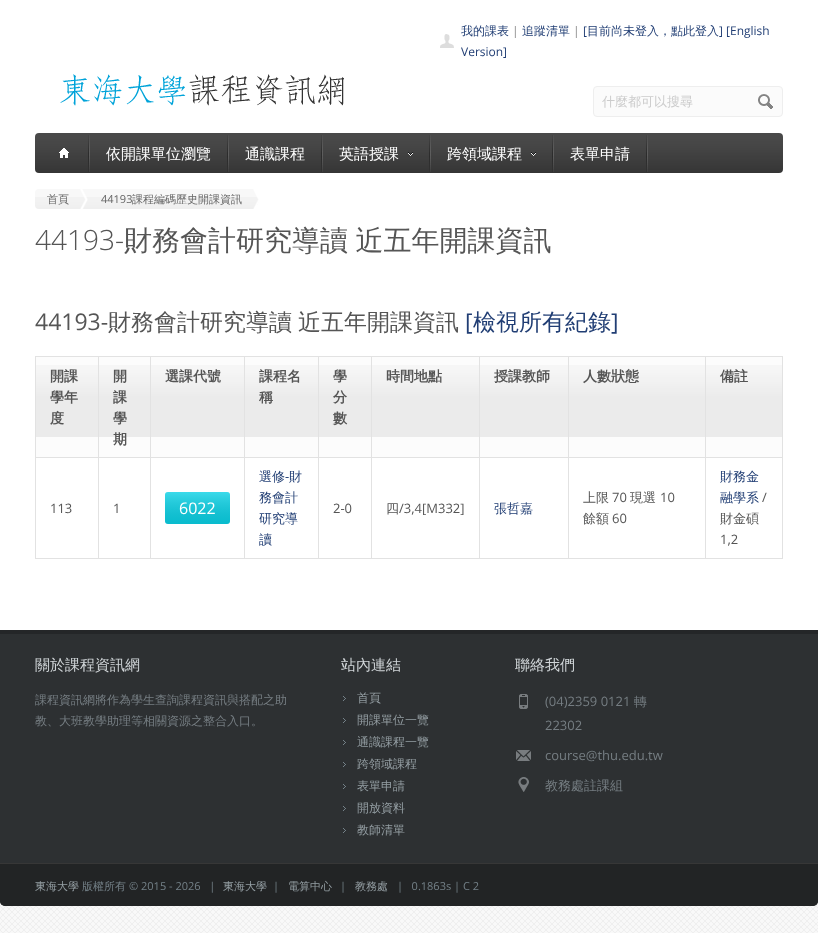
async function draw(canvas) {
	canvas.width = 818;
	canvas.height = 933;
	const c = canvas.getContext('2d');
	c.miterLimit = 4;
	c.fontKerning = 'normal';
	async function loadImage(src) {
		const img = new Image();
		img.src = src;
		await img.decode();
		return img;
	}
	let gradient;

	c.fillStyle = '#fff';
	c.fillRect(0, 0, 818, 933);
	c.drawImage(await loadImage('img1.png'), 0, 901, 818, 32);
	c.drawImage(await loadImage('img2.png'), 60, 74, 284, 32);
	c.drawImage(await loadImage('img3.png'), 440, 34, 14, 14);
	c.font = '500 12px WenQuanYi Zen Hei';
	c.fillStyle = '#213e74';
	c.fillText('我的課表', 461, 35);
	c.font = '12px Open Sans';
	c.fillStyle = '#888';
	c.fillText('|', 512, 35);
	c.font = '500 12px WenQuanYi Zen Hei';
	c.fillStyle = '#213e74';
	c.fillText('追蹤清單', 522, 35);
	c.font = '12px Open Sans';
	c.fillStyle = '#888';
	c.fillText('|', 573, 35);
	c.fillStyle = '#213e74';
	c.fillText('[', 583, 35);
	c.font = '500 12px WenQuanYi Zen Hei';
	c.fillText('目前尚未登入，點此登入', 587, 35);
	c.font = '12px Open Sans';
	c.fillText('] [English', 719, 35);
	c.fillText('Version]', 461, 56);
	c.fillStyle = '#fbfbfb';
	c.beginPath();
	c.roundRect(593.5, 86.5, 189, 30, 3.5);
	c.fill();
	c.strokeStyle = '#eee';
	c.stroke();
	c.font = '500 13px WenQuanYi Zen Hei';
	c.fillStyle = '#ccc';
	c.fillText('什麼都可以搜尋', 602, 106);
	c.drawImage(await loadImage('img4.png'), 758, 94, 15, 15);
	c.drawImage(await loadImage('img5.png'), 35, 133, 748, 40);
	c.drawImage(await loadImage('img6.png'), 88, 135, 2, 37);
	c.drawImage(await loadImage('img7.png'), 40, 133, 48, 40);
	c.drawImage(await loadImage('img8.png'), 59, 148, 10, 10);
	c.drawImage(await loadImage('img6.png'), 227, 135, 2, 37);
	c.drawImage(await loadImage('img9.png'), 90, 133, 137, 40);
	c.font = '500 15px WenQuanYi Zen Hei';
	c.fillStyle = '#fff';
	c.fillText('依開課單位瀏覽', 106, 159);
	c.drawImage(await loadImage('img6.png'), 321, 135, 2, 37);
	c.drawImage(await loadImage('img10.png'), 229, 133, 92, 40);
	c.fillText('通識課程', 245, 159);
	c.drawImage(await loadImage('img6.png'), 429, 135, 2, 37);
	c.drawImage(await loadImage('img11.png'), 323, 133, 106, 40);
	c.fillText('英語授課', 339, 159);
	c.drawImage(await loadImage('img12.png'), 408, 152, 5, 4);
	c.drawImage(await loadImage('img6.png'), 552, 135, 2, 37);
	c.drawImage(await loadImage('img13.png'), 431, 133, 121, 40);
	c.fillText('跨領域課程', 447, 159);
	c.drawImage(await loadImage('img12.png'), 531, 152, 5, 4);
	c.drawImage(await loadImage('img6.png'), 646, 135, 2, 37);
	c.drawImage(await loadImage('img10.png'), 554, 133, 92, 40);
	c.fillText('表單申請', 570, 159);
	c.fillStyle = '#f8f8f8';
	c.beginPath();
	c.roundRect(35, 189, 54, 20, [4, 0, 0, 4]);
	c.fill();
	c.drawImage(await loadImage('img14.png'), 35, 197, 54, 12);
	c.drawImage(await loadImage('img15.png'), 80, 189, 8, 20);
	c.font = '500 11px WenQuanYi Zen Hei';
	c.fillStyle = '#666';
	c.fillText('首頁', 47, 203);
	c.fillStyle = '#f8f8f8';
	c.fillRect(89, 189, 171, 20);
	c.drawImage(await loadImage('img16.png'), 89, 197, 171, 12);
	c.drawImage(await loadImage('img17.png'), 253, 189, 9, 20);
	c.font = '11px Open Sans';
	c.fillStyle = '#666';
	c.fillText('44193', 101, 203);
	c.font = '500 11px WenQuanYi Zen Hei';
	c.fillText('課程編碼歷史開課資訊', 132, 203);
	c.font = '300 28px Open Sans';
	c.fillStyle = '#555';
	c.fillText('44193-', 35, 250);
	c.wordSpacing = '-1px';
	c.font = '500 28px WenQuanYi Zen Hei';
	c.fillText('財務會計研究導讀 近五年開課資訊', 124, 250);
	c.wordSpacing = '0px';
	c.font = '23px Open Sans';
	c.fillText('44193-', 35, 330);
	c.wordSpacing = '-1px';
	c.font = '500 23px WenQuanYi Zen Hei';
	c.fillText('財務會計研究導讀 近五年開課資訊', 108, 330);
	c.wordSpacing = '0px';
	c.font = '23px Open Sans';
	c.fillStyle = '#213e74';
	c.fillText('[', 465, 330);
	c.font = '500 23px WenQuanYi Zen Hei';
	c.fillText('檢視所有紀錄', 473, 330);
	c.font = '23px Open Sans';
	c.fillText(']', 611, 330);
	c.fillStyle = '#fcfcfc';
	c.fillRect(36, 357, 62, 100);
	c.drawImage(await loadImage('img18.png'), 36, 365, 62, 72);
	for (const [x, y, w, h, color] of [
		[705, 356, 78, 1, '#e2e2e2'],
		[705, 457, 78, 1, '#e2e2e2'],
		[782, 457, 1, 102, '#e2e2e2'],
		[705, 558, 78, 1, '#e2e2e2'],
		[705, 457, 1, 102, '#e2e2e2'],
		[568, 457, 138, 1, '#e2e2e2'],
		[705, 356, 1, 102, '#e2e2e2'],
		[568, 356, 138, 1, '#e2e2e2'],
		[568, 558, 138, 1, '#e2e2e2'],
		[568, 457, 1, 102, '#e2e2e2'],
		[479, 457, 90, 1, '#e2e2e2'],
		[568, 356, 1, 102, '#e2e2e2'],
		[479, 356, 90, 1, '#e2e2e2'],
		[479, 558, 90, 1, '#e2e2e2'],
		[479, 457, 1, 102, '#e2e2e2'],
		[371, 457, 109, 1, '#e2e2e2'],
		[479, 356, 1, 102, '#e2e2e2'],
		[371, 356, 109, 1, '#e2e2e2'],
		[371, 558, 109, 1, '#e2e2e2'],
		[371, 457, 1, 102, '#e2e2e2'],
		[318, 457, 54, 1, '#e2e2e2'],
		[371, 356, 1, 102, '#e2e2e2'],
		[318, 356, 54, 1, '#e2e2e2'],
		[318, 558, 54, 1, '#e2e2e2'],
		[318, 457, 1, 102, '#e2e2e2'],
		[244, 457, 75, 1, '#e2e2e2'],
		[318, 356, 1, 102, '#e2e2e2'],
		[244, 356, 75, 1, '#e2e2e2'],
		[244, 558, 75, 1, '#e2e2e2'],
		[244, 457, 1, 102, '#e2e2e2'],
		[150, 457, 95, 1, '#e2e2e2'],
		[244, 356, 1, 102, '#e2e2e2'],
		[150, 356, 95, 1, '#e2e2e2'],
		[150, 558, 95, 1, '#e2e2e2'],
		[150, 457, 1, 102, '#e2e2e2'],
		[98, 457, 53, 1, '#e2e2e2'],
		[150, 356, 1, 102, '#e2e2e2'],
		[98, 356, 53, 1, '#e2e2e2'],
		[98, 558, 53, 1, '#e2e2e2'],
		[98, 457, 1, 102, '#e2e2e2'],
		[35, 457, 64, 1, '#e2e2e2'],
		[98, 356, 1, 102, '#e2e2e2'],
		[35, 356, 64, 1, '#e2e2e2'],
		[35, 558, 64, 1, '#e2e2e2'],
		[35, 457, 1, 102, '#e2e2e2'],
		[35, 356, 1, 102, '#e2e2e2'],
	]) {
		c.fillStyle = color;
		c.fillRect(x, y, w, h);
	}
	c.font = 'bold 14px WenQuanYi Zen Hei';
	c.fillStyle = '#555';
	for (const [text, x, y] of [
		['開課', 50, 381],
		['學年', 50, 402],
		['度', 50, 423],
	]) {
		c.fillText(text, x, y);
	}
	c.fillStyle = '#fcfcfc';
	c.fillRect(99, 357, 51, 100);
	c.drawImage(await loadImage('img19.png'), 99, 365, 51, 72);
	c.fillStyle = '#555';
	for (const [text, x, y] of [
		['開', 113, 381],
		['課', 113, 402],
		['學', 113, 423],
		['期', 113, 444],
	]) {
		c.fillText(text, x, y);
	}
	c.fillStyle = '#fcfcfc';
	c.fillRect(151, 357, 93, 100);
	c.drawImage(await loadImage('img20.png'), 151, 365, 93, 72);
	c.fillStyle = '#555';
	c.fillText('選課代號', 165, 381);
	c.fillStyle = '#fcfcfc';
	c.fillRect(245, 357, 73, 100);
	c.drawImage(await loadImage('img21.png'), 245, 365, 73, 72);
	c.fillStyle = '#555';
	c.fillText('課程名', 259, 381);
	c.fillText('稱', 259, 402);
	c.fillStyle = '#fcfcfc';
	c.fillRect(319, 357, 52, 100);
	c.drawImage(await loadImage('img22.png'), 319, 365, 52, 72);
	c.fillStyle = '#555';
	for (const [text, x, y] of [
		['學', 333, 381],
		['分', 333, 402],
		['數', 333, 423],
	]) {
		c.fillText(text, x, y);
	}
	c.fillStyle = '#fcfcfc';
	c.fillRect(372, 357, 107, 100);
	c.drawImage(await loadImage('img23.png'), 372, 365, 107, 72);
	c.fillStyle = '#555';
	c.fillText('時間地點', 386, 381);
	c.fillStyle = '#fcfcfc';
	c.fillRect(480, 357, 88, 100);
	c.drawImage(await loadImage('img24.png'), 480, 365, 88, 72);
	c.fillStyle = '#555';
	c.fillText('授課教師', 494, 381);
	c.fillStyle = '#fcfcfc';
	c.fillRect(569, 357, 136, 100);
	c.drawImage(await loadImage('img25.png'), 569, 365, 136, 72);
	c.fillStyle = '#555';
	c.fillText('人數狀態', 583, 381);
	c.fillStyle = '#fcfcfc';
	c.fillRect(706, 357, 76, 100);
	c.drawImage(await loadImage('img26.png'), 706, 365, 76, 72);
	c.fillStyle = '#e2e2e2';
	c.fillRect(782, 356, 1, 102);
	c.fillStyle = '#555';
	c.fillText('備註', 720, 381);
	c.font = '13px Open Sans';
	c.fillText('113', 50, 513);
	c.fillText('1', 113, 513);
	c.fillStyle = '#0ad1e5';
	c.beginPath();
	c.roundRect(165, 492, 65, 32, 3);
	c.fill();
	gradient = c.createLinearGradient(198, 492, 198, 524);
	gradient.addColorStop(0, '#ffffff33');
	gradient.addColorStop(1, '#0000001a');
	c.fillStyle = gradient;
	c.beginPath();
	c.roundRect(165, 492, 65, 32, 3);
	c.fill();
	c.font = '16px Open Sans';
	c.fillStyle = '#fff';
	c.fillText('6022', 179, 514);
	c.font = '500 13px WenQuanYi Zen Hei';
	c.fillStyle = '#213e74';
	c.fillText('選修 財', 259, 481);
	c.font = '13px Open Sans';
	c.fillText('-', 285, 481);
	c.font = '500 13px WenQuanYi Zen Hei';
	for (const [text, x, y] of [
		['務會計', 259, 502],
		['研究導', 259, 523],
		['讀', 259, 544],
	]) {
		c.fillText(text, x, y);
	}
	c.font = '13px Open Sans';
	c.fillStyle = '#555';
	c.fillText('2-0', 333, 513);
	c.font = '500 13px WenQuanYi Zen Hei';
	c.fillText('四', 386, 513);
	c.font = '13px Open Sans';
	c.fillText('/3,4[M332]', 399, 513);
	c.font = '500 13px WenQuanYi Zen Hei';
	c.fillStyle = '#213e74';
	c.fillText('張哲嘉', 494, 513);
	c.fillStyle = '#555';
	c.fillText('上限', 583, 502);
	c.font = '13px Open Sans';
	c.fillText('70', 612, 502);
	c.font = '500 13px WenQuanYi Zen Hei';
	c.fillText('現選', 630, 502);
	c.font = '13px Open Sans';
	c.fillText('10', 660, 502);
	c.font = '500 13px WenQuanYi Zen Hei';
	c.fillText('餘額', 583, 523);
	c.font = '13px Open Sans';
	c.fillText('60', 612, 523);
	c.font = '500 13px WenQuanYi Zen Hei';
	c.fillStyle = '#213e74';
	c.fillText('財務金', 720, 481);
	c.fillText('融學系', 720, 502);
	c.font = '13px Open Sans';
	c.fillStyle = '#555';
	c.fillText('/', 762, 502);
	c.font = '500 13px WenQuanYi Zen Hei';
	c.fillText('財金碩', 720, 523);
	c.font = '13px Open Sans';
	c.fillText('1,2', 720, 544);
	c.fillStyle = '#2d3032';
	c.beginPath();
	c.roundRect(0, 630, 818, 276, [0, 0, 5, 5]);
	c.fill();
	c.fillStyle = '#242628';
	c.fillRect(0, 630, 818, 4);
	c.font = '500 15px WenQuanYi Zen Hei';
	c.fillStyle = '#d1d6d9';
	c.fillText('關於課程資訊網', 35, 670);
	c.font = '500 12px WenQuanYi Zen Hei';
	c.fillStyle = '#757d82';
	c.fillText('課程資訊網將作為學生查詢課程資訊與搭配之助', 35, 704);
	c.fillText('教、大班教學助理等相關資源之整合入口。', 35, 725);
	c.font = '500 15px WenQuanYi Zen Hei';
	c.fillStyle = '#d1d6d9';
	c.fillText('站內連結', 341, 670);
	c.drawImage(await loadImage('img27.png'), 343, 696, 3, 5);
	c.font = '500 12px WenQuanYi Zen Hei';
	c.fillStyle = '#949ea3';
	c.fillText('首頁', 357, 702);
	c.drawImage(await loadImage('img27.png'), 343, 718, 3, 5);
	c.fillText('開課單位一覽', 357, 724);
	c.drawImage(await loadImage('img27.png'), 343, 740, 3, 5);
	c.fillText('通識課程一覽', 357, 746);
	c.drawImage(await loadImage('img27.png'), 343, 762, 3, 5);
	c.fillText('跨領域課程', 357, 768);
	c.drawImage(await loadImage('img27.png'), 343, 784, 3, 5);
	c.fillText('表單申請', 357, 790);
	c.drawImage(await loadImage('img27.png'), 343, 806, 3, 5);
	c.fillText('開放資料', 357, 812);
	c.drawImage(await loadImage('img27.png'), 343, 828, 3, 5);
	c.fillText('教師清單', 357, 834);
	c.font = '500 15px WenQuanYi Zen Hei';
	c.fillStyle = '#d1d6d9';
	c.fillText('聯絡我們', 515, 670);
	c.drawImage(await loadImage('img28.png'), 519, 694, 9, 15);
	c.font = '13px Open Sans';
	c.fillStyle = '#757d82';
	c.fillText('(04)2359 0121', 545, 706);
	c.font = '500 13px WenQuanYi Zen Hei';
	c.fillText('轉', 634, 706);
	c.font = '13px Open Sans';
	c.fillText('22302', 545, 730);
	c.drawImage(await loadImage('img29.png'), 516, 750, 15, 11);
	c.fillText('course@thu.edu.tw', 545, 760);
	c.drawImage(await loadImage('img30.png'), 518, 777, 11, 15);
	c.font = '500 13px WenQuanYi Zen Hei';
	c.fillText('教務處註課組', 545, 790);
	c.fillStyle = '#222425';
	c.beginPath();
	c.roundRect(0, 863, 818, 43, [0, 0, 5, 5]);
	c.fill();
	c.fillStyle = '#373737';
	c.fillRect(0, 863, 818, 1);
	c.font = '500 11px WenQuanYi Zen Hei';
	c.fillStyle = '#949ea3';
	c.fillText('東海大學', 35, 890);
	c.fillStyle = '#748188';
	c.fillText('版權所有', 82, 890);
	c.font = '11px Open Sans';
	c.fillText('© 2015 - 2026   |', 129, 890);
	c.font = '500 11px WenQuanYi Zen Hei';
	c.fillStyle = '#949ea3';
	c.fillText('東海大學', 223, 890);
	c.font = '11px Open Sans';
	c.fillStyle = '#748188';
	c.fillText('|', 273, 890);
	c.font = '500 11px WenQuanYi Zen Hei';
	c.fillStyle = '#949ea3';
	c.fillText('電算中心', 288, 890);
	c.font = '11px Open Sans';
	c.fillStyle = '#748188';
	c.fillText('|', 340, 890);
	c.font = '500 11px WenQuanYi Zen Hei';
	c.fillStyle = '#949ea3';
	c.fillText('教務處', 355, 890);
	c.font = '11px Open Sans';
	c.fillStyle = '#748188';
	c.fillText('|   0.1863s | C 2', 397, 890);
}

draw(document.querySelector('canvas'));
